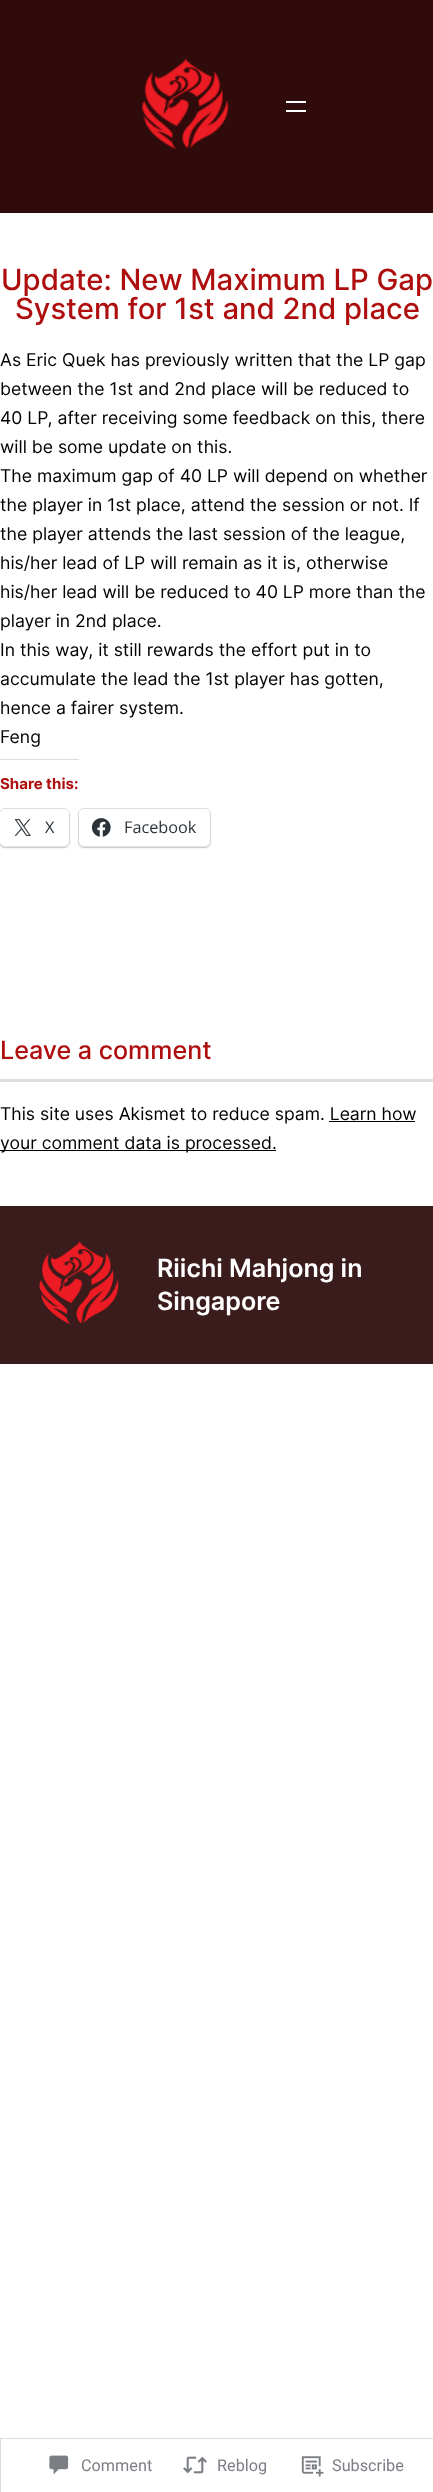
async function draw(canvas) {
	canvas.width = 433;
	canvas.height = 2492;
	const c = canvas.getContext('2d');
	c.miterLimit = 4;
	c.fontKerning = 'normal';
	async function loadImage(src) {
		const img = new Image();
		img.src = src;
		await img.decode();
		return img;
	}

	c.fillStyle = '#fff';
	c.fillRect(0, 0, 433, 2492);
	c.fillStyle = '#300b0b';
	c.fillRect(0, 0, 433, 213);
	c.drawImage(await loadImage('img1.png'), 141, 58, 88, 92);
	c.fillStyle = '#fff';
	c.fillRect(286, 101, 20, 2);
	c.fillRect(286, 110, 20, 2);
	c.font = '500 29.25px Inter';
	c.fillStyle = '#af0e0e';
	c.fillText('Update: New Maximum LP Gap', 1, 290);
	c.fillText('System for 1st and 2nd place', 15, 319);
	c.font = '17.6px Inter';
	c.fillStyle = '#000';
	for (const [text, x, y] of [
		['As Eric Quek has previously written that the LP gap', 0, 366],
		['between the 1st and 2nd place will be reduced to', 0, 395],
		['40 LP, after receiving some feedback on this, there', 0, 424],
		['will be some update on this.', 0, 453],
		['The maximum gap of 40 LP will depend on whether', 0, 482],
		['the player in 1st place, attend the session or not. If', 0, 511],
		['the player attends the last session of the league,', 0, 540],
		['his/her lead of LP will remain as it is, otherwise', 0, 569],
		['his/her lead will be reduced to 40 LP more than the', 0, 598],
		['player in 2nd place.', 0, 627],
		['In this way, it still rewards the effort put in to', 0, 656],
		['accumulate the lead the 1st player has gotten,', 0, 685],
		['hence a fairer system.', 0, 714],
		['Feng', 0, 743],
	]) {
		c.fillText(text, x, y);
	}
	c.fillStyle = '#dcdcde';
	c.fillRect(0, 759, 79, 1);
	c.font = 'bold 15px Inter';
	c.fillStyle = '#af0e0e';
	c.fillText('Share this:', 0, 789);
	c.beginPath();
	c.roundRect(-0.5, 808.5, 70, 39, 5.5);
	c.strokeStyle = '#e0e0e0';
	c.stroke();
	c.fillStyle = '#0000001f';
	c.filter = 'blur(1px)';
	c.beginPath();
	c.roundRect(0, 810, 69, 38, 5);
	c.fill();
	c.filter = 'none';
	c.fillStyle = '#fff';
	c.beginPath();
	c.roundRect(0, 809, 69, 37, 5);
	c.fill();
	c.drawImage(await loadImage('img2.png'), 14, 819, 17, 17);
	c.font = '16.25px Open Sans';
	c.fillStyle = '#2c3338';
	c.fillText('X', 45, 833);
	c.beginPath();
	c.roundRect(78.5, 808.5, 132, 39, 5.5);
	c.stroke();
	c.fillStyle = '#0000001f';
	c.filter = 'blur(1px)';
	c.beginPath();
	c.roundRect(79, 810, 131, 38, 5);
	c.fill();
	c.filter = 'none';
	c.fillStyle = '#fff';
	c.beginPath();
	c.roundRect(79, 809, 131, 37, 5);
	c.fill();
	c.drawImage(await loadImage('img3.png'), 91, 818, 20, 19);
	c.fillStyle = '#2c3338';
	c.fillText('Facebook', 124, 833);
	c.font = '500 25.1px Inter';
	c.fillStyle = '#af0e0e';
	c.fillText('Leave a comment', 0, 1059);
	c.fillStyle = '#dcdcde';
	c.fillRect(0, 1079, 433, 3);
	c.font = '17.6px Inter';
	c.fillStyle = '#000';
	c.fillText('This site uses Akismet to reduce spam. Learn how', 0, 1120);
	c.fillRect(0, 1150, 276, 1);
	c.fillText('your comment data is processed.', 0, 1149);
	c.fillRect(329, 1121, 86, 1);
	c.fillStyle = '#3b1c1c';
	c.fillRect(0, 1206, 433, 158);
	c.drawImage(await loadImage('img4.png'), 39, 1241, 80, 84);
	c.font = '600 25.1px Inter';
	c.fillStyle = '#fff';
	c.fillText('Riichi Mahjong in', 157, 1277);
	c.fillText('Singapore', 157, 1310);
	c.strokeStyle = '#dddddf';
	c.strokeRect(0.5, 2438.5, 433, 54);
	c.drawImage(await loadImage('img5.png'), 49, 2455, 20, 20);
	c.font = '16.25px Roboto';
	c.fillStyle = '#7b7f85';
	c.fillText('Comment', 81, 2471);
	c.drawImage(await loadImage('img6.png'), 183, 2456, 24, 18);
	c.fillText('Reblog', 217, 2471);
	c.drawImage(await loadImage('img7.png'), 301, 2456, 23, 21);
	c.fillText('Subscribe', 332, 2471);
}

draw(document.querySelector('canvas'));
